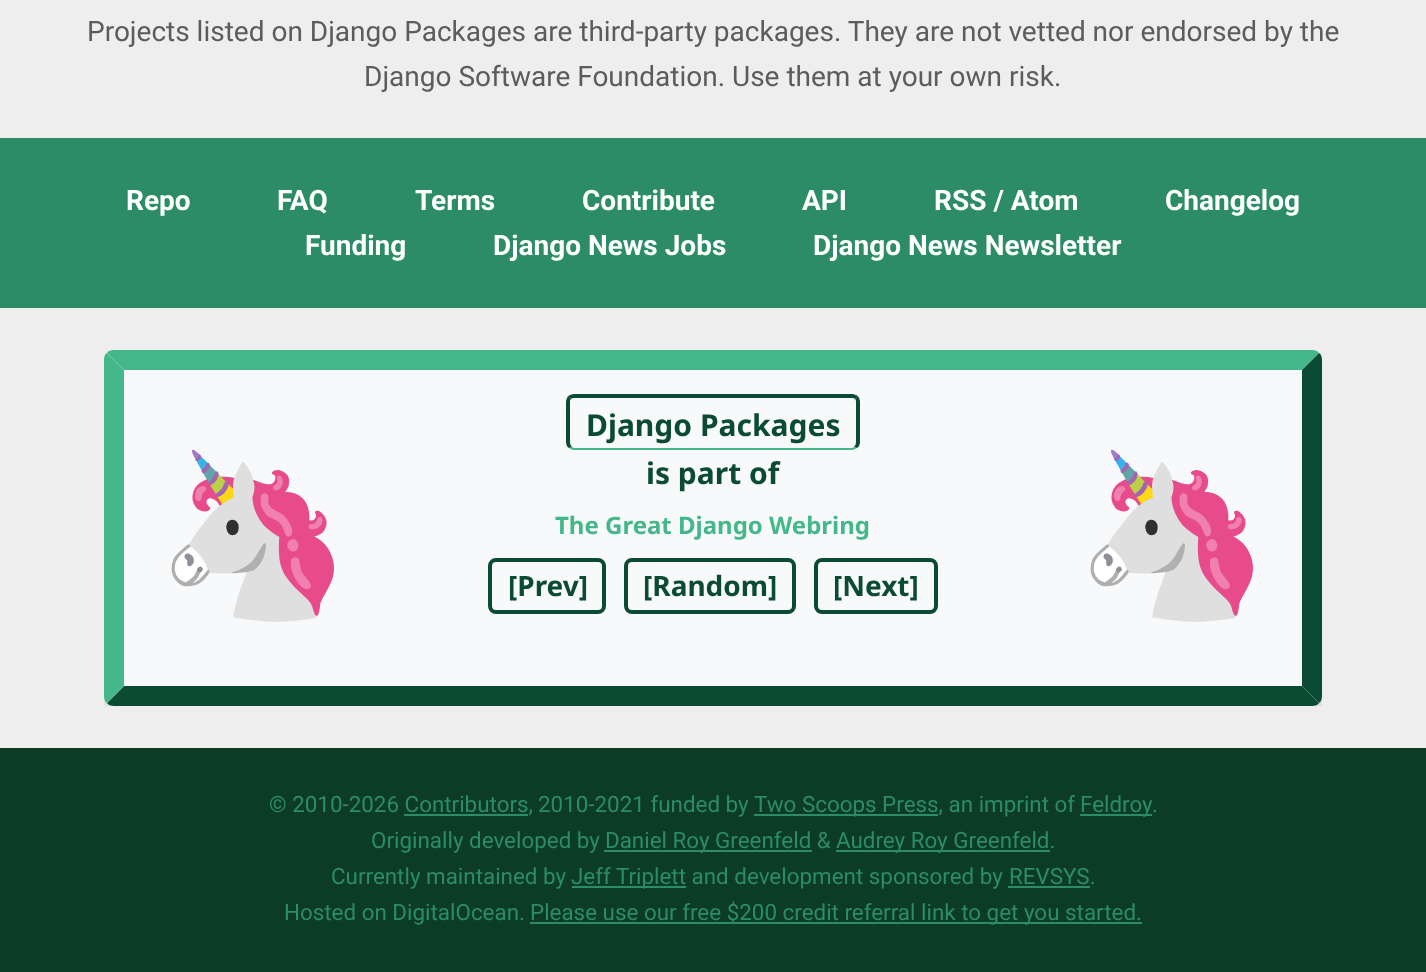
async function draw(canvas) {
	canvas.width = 1426;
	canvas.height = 972;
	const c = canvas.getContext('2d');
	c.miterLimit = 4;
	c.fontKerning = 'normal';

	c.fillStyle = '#eee';
	c.fillRect(0, 0, 1426, 972);
	c.font = '28px Roboto';
	c.fillStyle = '#5c5c5c';
	c.fillText('Projects listed on Django Packages are third-party packages. They are not vetted nor endorsed by the', 87, 41);
	c.fillText('Django Software Foundation. Use them at your own risk.', 364, 86);
	c.fillStyle = '#2b8c67';
	c.fillRect(0, 138, 1426, 170);
	c.font = 'bold 28px Roboto';
	c.fillStyle = '#fff';
	for (const [text, x, y] of [
		['Repo', 126, 210],
		['FAQ', 277, 210],
		['Terms', 415, 210],
		['Contribute', 582, 210],
		['API', 802, 210],
		['RSS / Atom', 934, 210],
		['Changelog', 1165, 210],
		['Funding', 305, 255],
		['Django News Jobs', 493, 255],
		['Django News Newsletter', 813, 255],
	]) {
		c.fillText(text, x, y);
	}
	c.save();
	c.beginPath();
	c.rect(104, 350, 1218, 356);
	c.clip();
	c.fillStyle = '#0000001a';
	c.filter = 'blur(6px)';
	c.beginPath();
	c.roundRect(104, 358, 1218, 356, 10);
	c.fill();
	c.filter = 'none';
	c.restore();
	c.fillStyle = '#f8f9fa';
	c.beginPath();
	c.roundRect(104, 350, 1218, 356, 10);
	c.fill();
	c.fillStyle = '#44b78b';
	c.beginPath();
	c.moveTo(114, 350);
	c.bezierCurveTo(111, 350, 108, 351, 107, 353);
	c.lineTo(124, 370);
	c.lineTo(1302, 370);
	c.lineTo(1319, 353);
	c.bezierCurveTo(1318, 351, 1315, 350, 1312, 350);
	c.closePath();
	c.fill();
	c.fillStyle = '#0c4b33';
	c.beginPath();
	c.moveTo(1322, 696);
	c.lineTo(1322, 360);
	c.bezierCurveTo(1322, 357, 1321, 354, 1319, 353);
	c.lineTo(1302, 370);
	c.lineTo(1302, 686);
	c.lineTo(1319, 703);
	c.bezierCurveTo(1321, 702, 1322, 699, 1322, 696);
	c.closePath();
	c.fill();
	c.beginPath();
	c.moveTo(114, 706);
	c.lineTo(1312, 706);
	c.bezierCurveTo(1315, 706, 1318, 705, 1319, 703);
	c.lineTo(1302, 686);
	c.lineTo(124, 686);
	c.lineTo(107, 703);
	c.bezierCurveTo(108, 705, 111, 706, 114, 706);
	c.closePath();
	c.fill();
	c.fillStyle = '#44b78b';
	c.beginPath();
	c.moveTo(124, 370);
	c.lineTo(107, 353);
	c.bezierCurveTo(105, 354, 104, 357, 104, 360);
	c.lineTo(104, 696);
	c.bezierCurveTo(104, 699, 105, 702, 107, 703);
	c.lineTo(124, 686);
	c.closePath();
	c.fill();
	c.font = '160px Noto Color Emoji';
	c.fillStyle = '#5c5c5c';
	c.fillText('🦄', 154, 590);
	c.font = 'bold 30px Noto Sans';
	c.fillStyle = '#0c4b33';
	c.fillText('Django Packages', 586, 436);
	c.beginPath();
	c.moveTo(574, 394);
	c.bezierCurveTo(572, 394, 570, 395, 568, 396);
	c.lineTo(571, 399);
	c.bezierCurveTo(572, 398, 573, 398, 574, 398);
	c.lineTo(852, 398);
	c.bezierCurveTo(853, 398, 854, 398, 855, 399);
	c.lineTo(858, 396);
	c.bezierCurveTo(856, 395, 854, 394, 852, 394);
	c.closePath();
	c.fill();
	c.beginPath();
	c.moveTo(860, 442);
	c.lineTo(860, 402);
	c.bezierCurveTo(860, 400, 859, 398, 858, 396);
	c.lineTo(855, 399);
	c.bezierCurveTo(856, 400, 856, 401, 856, 402);
	c.lineTo(856, 442);
	c.bezierCurveTo(856, 444, 855, 446, 854, 447);
	c.lineTo(857, 448);
	c.bezierCurveTo(859, 447, 860, 444, 860, 442);
	c.closePath();
	c.fill();
	c.fillStyle = '#44b78b';
	c.beginPath();
	c.moveTo(574, 450);
	c.lineTo(853, 450);
	c.lineTo(857, 448);
	c.lineTo(854, 447);
	c.lineTo(852, 448);
	c.lineTo(574, 448);
	c.lineTo(572, 447);
	c.lineTo(569, 448);
	c.bezierCurveTo(571, 449, 572, 450, 574, 450);
	c.closePath();
	c.fill();
	c.fillStyle = '#0c4b33';
	c.beginPath();
	c.moveTo(566, 402);
	c.lineTo(566, 442);
	c.bezierCurveTo(566, 444, 567, 447, 569, 448);
	c.lineTo(572, 447);
	c.bezierCurveTo(571, 446, 570, 444, 570, 442);
	c.lineTo(570, 402);
	c.bezierCurveTo(570, 401, 570, 400, 571, 399);
	c.lineTo(568, 396);
	c.bezierCurveTo(567, 398, 566, 400, 566, 402);
	c.closePath();
	c.fill();
	c.fillText('is part of', 646, 484);
	c.font = 'bold 24px Noto Sans';
	c.fillStyle = '#44b78b';
	c.fillText('The Great Django Webring', 555, 534);
	c.beginPath();
	c.roundRect(490, 560, 114, 52, 6);
	c.strokeStyle = '#0c4b33';
	c.lineWidth = 4;
	c.stroke();
	c.font = 'bold 28px Noto Sans';
	c.fillStyle = '#0c4b33';
	c.fillText('[Prev]', 508, 596);
	c.beginPath();
	c.roundRect(626, 560, 168, 52, 6);
	c.stroke();
	c.fillText('[Random]', 643, 596);
	c.beginPath();
	c.roundRect(816, 560, 120, 52, 6);
	c.stroke();
	c.fillText('[Next]', 833, 596);
	c.font = '160px Noto Color Emoji';
	c.fillStyle = '#5c5c5c';
	c.fillText('🦄', 1073, 590);
	c.fillStyle = '#0c3c26';
	c.fillRect(0, 748, 1426, 224);
	c.font = '22.4px Roboto';
	c.fillStyle = '#2b8c67';
	c.fillText('© 2010-2026 Contributors,', 269, 812);
	c.fillText('2010-2021 funded by', 538, 812);
	c.fillRect(754, 814, 184, 2);
	c.fillText('Two Scoops Press, an imprint of', 754, 812);
	c.fillRect(1080, 814, 72, 2);
	c.fillText('Feldroy', 1080, 812);
	c.fillText('.', 1152, 812);
	c.fillRect(404, 814, 124, 2);
	c.fillText('Originally developed by', 371, 848);
	c.fillRect(604, 850, 208, 2);
	c.fillText('Daniel Roy Greenfeld &', 605, 848);
	c.fillRect(836, 850, 214, 2);
	c.fillText('Audrey Roy Greenfeld.', 836, 848);
	c.fillText('Currently maintained by', 331, 884);
	c.fillRect(572, 886, 114, 2);
	c.fillText('Jeff Triplett and development sponsored by', 571, 884);
	c.fillText('REVSYS.', 1009, 884);
	c.fillRect(1008, 886, 82, 2);
	c.fillText('Hosted on DigitalOcean.', 284, 920);
	c.fillRect(530, 922, 612, 2);
	c.fillText('Please use our free $200 credit referral link to get you started.', 530, 920);
}

draw(document.querySelector('canvas'));
